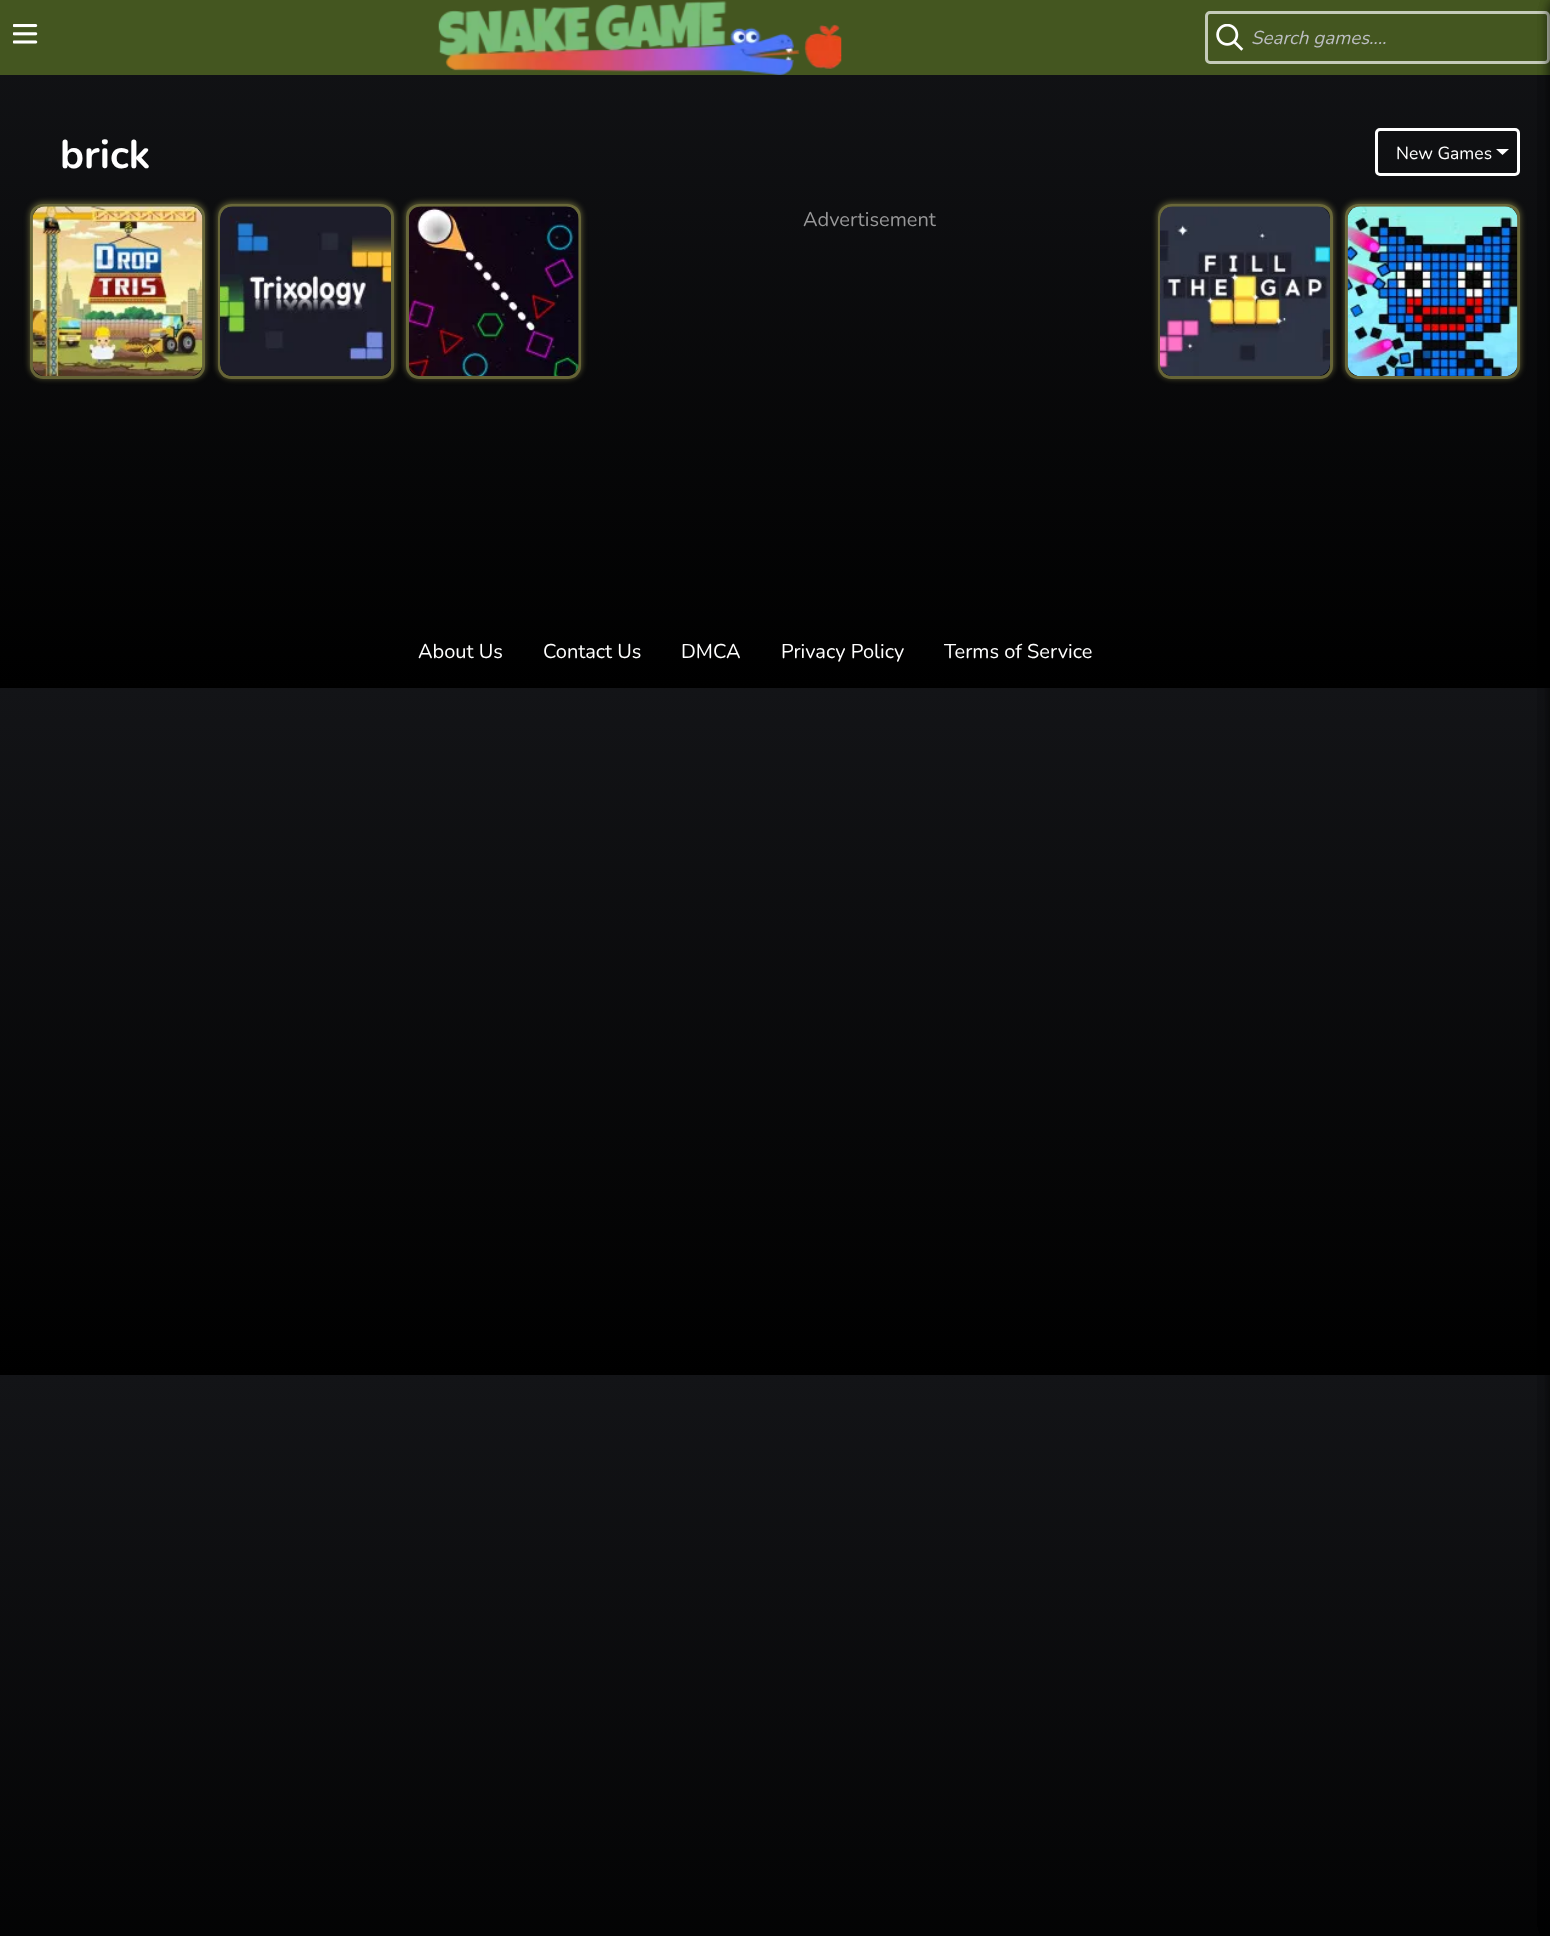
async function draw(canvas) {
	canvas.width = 1550;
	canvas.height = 1936;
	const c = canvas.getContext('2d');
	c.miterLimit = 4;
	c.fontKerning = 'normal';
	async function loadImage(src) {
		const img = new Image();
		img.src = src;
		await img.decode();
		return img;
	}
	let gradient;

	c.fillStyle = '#fff';
	c.fillRect(0, 0, 1550, 1936);
	gradient = c.createLinearGradient(775, 0, 775, 688);
	gradient.addColorStop(0, '#131417');
	gradient.addColorStop(1, '#000');
	c.fillStyle = gradient;
	c.fillRect(0, 75, 1550, 613);
	gradient = c.createLinearGradient(775, 688, 775, 1375);
	gradient.addColorStop(0, '#131417');
	gradient.addColorStop(1, '#000');
	c.fillStyle = gradient;
	c.fillRect(0, 688, 1550, 687);
	gradient = c.createLinearGradient(775, 1375, 775, 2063);
	gradient.addColorStop(0, '#131417');
	gradient.addColorStop(1, '#000');
	c.fillStyle = gradient;
	c.fillRect(0, 1375, 1550, 561);
	c.fillStyle = '#445620';
	c.fillRect(0, 0, 1550, 75);
	c.beginPath();
	c.roundRect(1206.5, 12.5, 342, 50, 3.5);
	c.strokeStyle = '#c5cbba';
	c.lineWidth = 3;
	c.stroke();
	c.fillStyle = '#0000004d';
	c.filter = 'blur(6px)';
	c.beginPath();
	c.roundRect(1550, 0, 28, 1936, 10);
	c.fill();
	c.filter = 'none';
	c.filter = 'blur(6px)';
	c.beginPath();
	c.roundRect(1550, 0, 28, 1936, 10);
	c.fill();
	c.filter = 'none';
	c.drawImage(await loadImage('img1.png'), 13, 24, 25, 20);
	c.drawImage(await loadImage('img2.png'), 438, 1, 404, 74);
	c.drawImage(await loadImage('img3.png'), 1216, 24, 28, 27);
	c.font = 'italic 18.75px Nunito';
	c.fillStyle = '#bcbec2';
	c.fillText('Search games....', 1251, 44);
	c.font = 'bold 40px Nunito';
	c.fillStyle = '#fff';
	c.fillText('brick', 60, 168);
	c.beginPath();
	c.moveTo(1496, 149);
	c.lineTo(1502.5, 155);
	c.lineTo(1509, 149);
	c.closePath();
	c.fill();
	c.beginPath();
	c.roundRect(1376.5, 129.5, 142, 45, 3.5);
	c.strokeStyle = '#fff';
	c.stroke();
	c.font = '17.5px Nunito';
	c.fillText('New Games', 1396, 159);
	c.save();
	c.beginPath();
	c.moveTo(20, 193);
	c.lineTo(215, 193);
	c.lineTo(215, 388);
	c.lineTo(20, 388);
	c.closePath();
	c.moveTo(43, 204);
	c.lineTo(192, 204);
	c.bezierCurveTo(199, 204, 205, 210, 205, 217);
	c.lineTo(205, 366);
	c.bezierCurveTo(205, 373, 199, 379, 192, 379);
	c.lineTo(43, 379);
	c.bezierCurveTo(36, 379, 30, 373, 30, 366);
	c.lineTo(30, 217);
	c.bezierCurveTo(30, 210, 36, 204, 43, 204);
	c.closePath();
	c.clip('evenodd');
	c.fillStyle = '#c4c06380';
	c.filter = 'blur(3px)';
	c.beginPath();
	c.roundRect(30, 203, 175, 175, 13);
	c.fill();
	c.filter = 'none';
	c.restore();
	c.beginPath();
	c.roundRect(31.5, 205.5, 172, 172, 11.5);
	c.strokeStyle = '#c4c06380';
	c.stroke();
	c.drawImage(await loadImage('img4.png'), 32, 206, 171, 170);
	c.save();
	c.beginPath();
	c.moveTo(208, 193);
	c.lineTo(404, 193);
	c.lineTo(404, 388);
	c.lineTo(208, 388);
	c.closePath();
	c.moveTo(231, 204);
	c.lineTo(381, 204);
	c.bezierCurveTo(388, 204, 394, 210, 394, 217);
	c.lineTo(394, 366);
	c.bezierCurveTo(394, 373, 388, 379, 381, 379);
	c.lineTo(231, 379);
	c.bezierCurveTo(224, 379, 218, 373, 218, 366);
	c.lineTo(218, 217);
	c.bezierCurveTo(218, 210, 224, 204, 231, 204);
	c.closePath();
	c.clip('evenodd');
	c.fillStyle = '#c4c06380';
	c.filter = 'blur(3px)';
	c.beginPath();
	c.roundRect(218, 203, 176, 175, 13);
	c.fill();
	c.filter = 'none';
	c.restore();
	c.beginPath();
	c.roundRect(219.5, 205.5, 173, 172, 11.5);
	c.stroke();
	c.drawImage(await loadImage('img5.png'), 220, 206, 171, 170);
	c.save();
	c.beginPath();
	c.moveTo(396, 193);
	c.lineTo(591, 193);
	c.lineTo(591, 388);
	c.lineTo(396, 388);
	c.closePath();
	c.moveTo(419, 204);
	c.lineTo(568, 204);
	c.bezierCurveTo(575, 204, 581, 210, 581, 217);
	c.lineTo(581, 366);
	c.bezierCurveTo(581, 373, 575, 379, 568, 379);
	c.lineTo(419, 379);
	c.bezierCurveTo(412, 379, 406, 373, 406, 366);
	c.lineTo(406, 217);
	c.bezierCurveTo(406, 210, 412, 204, 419, 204);
	c.closePath();
	c.clip('evenodd');
	c.fillStyle = '#c4c06380';
	c.filter = 'blur(3px)';
	c.beginPath();
	c.roundRect(406, 203, 175, 175, 13);
	c.fill();
	c.filter = 'none';
	c.restore();
	c.beginPath();
	c.roundRect(407.5, 205.5, 172, 172, 11.5);
	c.stroke();
	c.drawImage(await loadImage('img6.png'), 409, 206, 170, 170);
	c.font = '20px Nunito';
	c.fillStyle = '#979798';
	c.fillText('Advertisement', 803, 226);
	c.save();
	c.beginPath();
	c.moveTo(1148, 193);
	c.lineTo(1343, 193);
	c.lineTo(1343, 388);
	c.lineTo(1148, 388);
	c.closePath();
	c.moveTo(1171, 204);
	c.lineTo(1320, 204);
	c.bezierCurveTo(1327, 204, 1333, 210, 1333, 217);
	c.lineTo(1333, 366);
	c.bezierCurveTo(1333, 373, 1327, 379, 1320, 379);
	c.lineTo(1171, 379);
	c.bezierCurveTo(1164, 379, 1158, 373, 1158, 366);
	c.lineTo(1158, 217);
	c.bezierCurveTo(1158, 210, 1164, 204, 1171, 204);
	c.closePath();
	c.clip('evenodd');
	c.fillStyle = '#c4c06380';
	c.filter = 'blur(3px)';
	c.beginPath();
	c.roundRect(1158, 203, 175, 175, 13);
	c.fill();
	c.filter = 'none';
	c.restore();
	c.beginPath();
	c.roundRect(1159.5, 205.5, 172, 172, 11.5);
	c.stroke();
	c.drawImage(await loadImage('img7.png'), 1160, 206, 170, 170);
	c.save();
	c.beginPath();
	c.moveTo(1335, 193);
	c.lineTo(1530, 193);
	c.lineTo(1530, 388);
	c.lineTo(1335, 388);
	c.closePath();
	c.moveTo(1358, 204);
	c.lineTo(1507, 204);
	c.bezierCurveTo(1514, 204, 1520, 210, 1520, 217);
	c.lineTo(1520, 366);
	c.bezierCurveTo(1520, 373, 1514, 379, 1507, 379);
	c.lineTo(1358, 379);
	c.bezierCurveTo(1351, 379, 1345, 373, 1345, 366);
	c.lineTo(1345, 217);
	c.bezierCurveTo(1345, 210, 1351, 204, 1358, 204);
	c.closePath();
	c.clip('evenodd');
	c.fillStyle = '#c4c06380';
	c.filter = 'blur(3px)';
	c.beginPath();
	c.roundRect(1345, 203, 175, 175, 13);
	c.fill();
	c.filter = 'none';
	c.restore();
	c.beginPath();
	c.roundRect(1346.5, 205.5, 172, 172, 11.5);
	c.stroke();
	c.drawImage(await loadImage('img8.png'), 1347, 206, 171, 170);
	c.fillStyle = '#0000004d';
	c.filter = 'blur(6px)';
	c.beginPath();
	c.roundRect(1550, 0, 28, 1936, 10);
	c.fill();
	c.filter = 'none';
	c.fillStyle = '#fff';
	for (const [text, x, y] of [
		['About Us', 418, 658],
		['Contact Us', 543, 658],
		['DMCA', 681, 658],
		['Privacy Policy', 781, 658],
		['Terms of Service', 944, 658],
	]) {
		c.fillText(text, x, y);
	}
}

draw(document.querySelector('canvas'));
